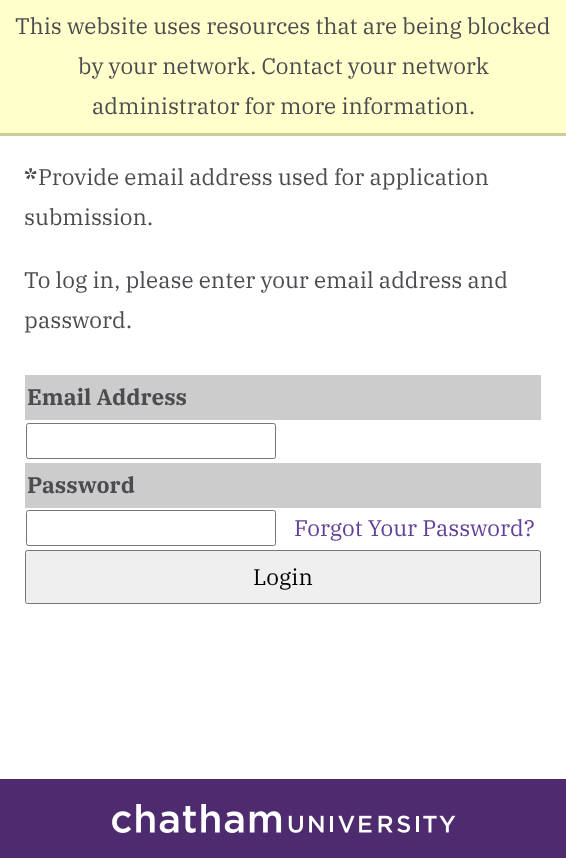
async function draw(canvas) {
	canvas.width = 566;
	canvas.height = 858;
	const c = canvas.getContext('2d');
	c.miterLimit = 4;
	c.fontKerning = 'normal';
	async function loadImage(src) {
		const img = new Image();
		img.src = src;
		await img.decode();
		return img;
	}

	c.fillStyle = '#fff';
	c.fillRect(0, 0, 566, 858);
	c.fillStyle = '#ffc';
	c.fillRect(0, 0, 566, 133);
	c.fillStyle = '#cc9';
	c.fillRect(0, 133, 566, 3);
	c.font = '22.5px IBM Plex Serif';
	c.fillStyle = '#4b4c50';
	for (const [text, x, y] of [
		['This website uses resources that are being blocked', 15, 34],
		['by your network. Contact your network', 78, 74],
		['administrator for more information.', 92, 114],
	]) {
		c.fillText(text, x, y);
	}
	c.font = 'bold 22.5px IBM Plex Serif';
	c.fillText('*', 24, 185);
	c.font = '22.5px IBM Plex Serif';
	for (const [text, x, y] of [
		['Provide email address used for application', 38, 185],
		['submission.', 24, 225],
		['To log in, please enter your email address and', 24, 288],
		['password.', 24, 328],
	]) {
		c.fillText(text, x, y);
	}
	c.fillStyle = '#ccc';
	c.fillRect(25, 375, 516, 45);
	c.font = 'bold 22.5px IBM Plex Serif';
	c.fillStyle = '#4b4c50';
	c.fillText('Email Address', 27, 405);
	c.beginPath();
	c.roundRect(26.5, 423.5, 249, 35, 2);
	c.strokeStyle = '#767676';
	c.stroke();
	c.fillStyle = '#ccc';
	c.fillRect(25, 463, 516, 45);
	c.fillStyle = '#4b4c50';
	c.fillText('Password', 27, 493);
	c.beginPath();
	c.roundRect(26.5, 510.5, 249, 35, 2);
	c.stroke();
	c.font = '22.5px IBM Plex Serif';
	c.fillStyle = '#623f98';
	c.fillText('Forgot Your Password?', 294, 536);
	c.fillStyle = '#efefef';
	c.beginPath();
	c.roundRect(25.5, 550.5, 515, 53, 2);
	c.fill();
	c.stroke();
	c.fillStyle = '#000';
	c.fillText('Login', 253, 585);
	c.fillStyle = '#4e2a6e';
	c.fillRect(0, 779, 566, 79);
	c.drawImage(await loadImage('img1.png'), 112, 804, 344, 29);
}

draw(document.querySelector('canvas'));
